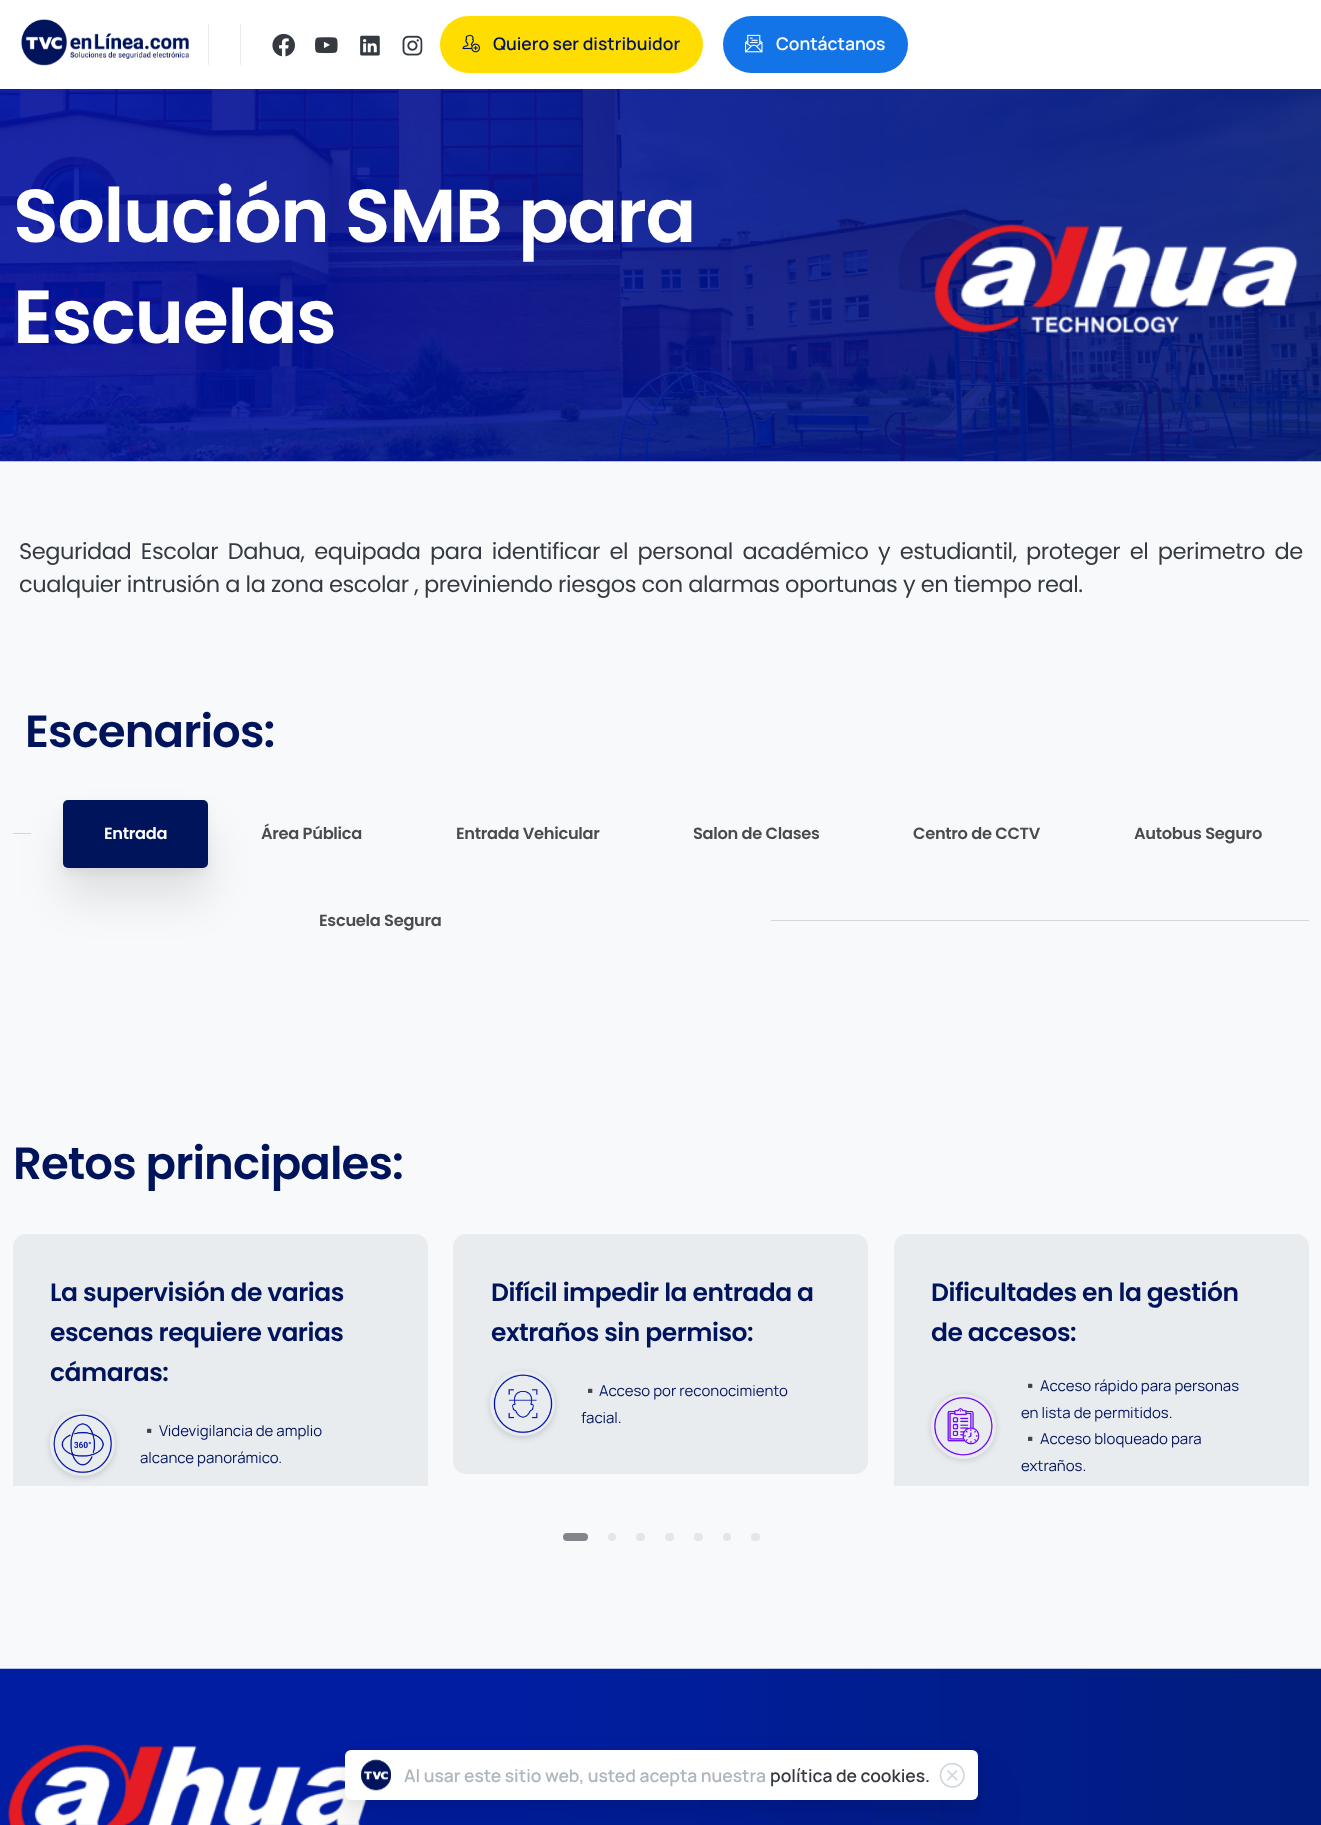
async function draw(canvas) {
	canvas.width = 1321;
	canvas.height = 1825;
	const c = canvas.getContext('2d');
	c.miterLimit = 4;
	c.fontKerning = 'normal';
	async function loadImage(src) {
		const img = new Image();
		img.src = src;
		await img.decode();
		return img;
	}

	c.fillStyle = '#f8f9fa';
	c.fillRect(0, 0, 1321, 1825);
	c.fillStyle = '#fff';
	c.fillRect(0, 0, 1321, 89);
	c.drawImage(await loadImage('img1.png'), 21, 19, 168, 47);
	c.fillStyle = '#e9ecef';
	c.fillRect(208, 24, 1, 41);
	c.fillRect(240, 24, 1, 41);
	c.drawImage(await loadImage('img2.png'), 272, 33, 23, 24);
	c.drawImage(await loadImage('img3.png'), 315, 37, 23, 17);
	c.drawImage(await loadImage('img4.png'), 360, 35, 20, 21);
	c.drawImage(await loadImage('img5.png'), 402, 35, 21, 21);
	c.fillStyle = '#fd0';
	c.beginPath();
	c.roundRect(440, 16, 263, 57, 28.5);
	c.fill();
	c.drawImage(await loadImage('img6.png'), 462, 34, 18, 19);
	c.font = '600 17.5px Manrope';
	c.fillStyle = '#00145c';
	c.fillText('Quiero ser distribuidor', 493, 50);
	c.fillStyle = '#1274e7';
	c.beginPath();
	c.roundRect(723, 16, 185, 57, 28.5);
	c.fill();
	c.drawImage(await loadImage('img7.png'), 745, 34, 18, 19);
	c.fillStyle = '#fff';
	c.fillText('Contáctanos', 776, 50);
	c.drawImage(await loadImage('img8.png'), 0, 89, 1321, 373);
	c.drawImage(await loadImage('img9.png'), 0, 89, 1321, 373);
	c.letterSpacing = '-1.5px';
	c.font = '600 75px Poppins';
	c.fillText('Solución SMB para', 13, 242);
	c.fillText('Escuelas', 13, 343);
	c.drawImage(await loadImage('img10.png'), 933, 223, 365, 111);
	c.letterSpacing = '-0.45px';
	c.wordSpacing = '4px';
	c.font = '22.5px Poppins';
	c.fillStyle = '#343a40';
	c.fillText('Seguridad Escolar Dahua, equipada para identificar el personal académico y estudiantil,', 19, 559);
	c.fillText('proteger el perimetro de', 1026, 559);
	c.wordSpacing = '0px';
	c.fillText('cualquier intrusión a la zona escolar , previniendo riesgos con alarmas oportunas y en tiempo real.', 19, 592);
	c.letterSpacing = '-0.9px';
	c.font = '600 45px Poppins';
	c.fillStyle = '#00145c';
	c.fillText('Escenarios:', 25, 747);
	c.fillStyle = '#0000001a';
	c.filter = 'blur(22px)';
	c.beginPath();
	c.roundRect(63, 830, 145, 68, 5);
	c.fill();
	c.filter = 'none';
	c.fillStyle = '#d2d7db';
	c.fillRect(13, 833, 18, 1);
	c.fillStyle = '#0000000d';
	c.filter = 'blur(5px)';
	c.beginPath();
	c.roundRect(63, 805, 145, 68, 5);
	c.fill();
	c.filter = 'none';
	c.fillStyle = '#00145c';
	c.beginPath();
	c.roundRect(63, 800, 145, 68, 5);
	c.fill();
	c.letterSpacing = '-0.3px';
	c.font = '600 16.25px Poppins';
	c.fillStyle = '#fff';
	c.fillText('Entrada', 104, 839);
	c.fillStyle = '#4a4b4b';
	for (const [text, x, y] of [
		['Área Pública', 261, 839],
		['Entrada Vehicular', 456, 839],
		['Salon de Clases', 693, 839],
		['Centro de CCTV', 913, 839],
		['Autobus Seguro', 1134, 839],
		['Escuela Segura', 319, 926],
	]) {
		c.fillText(text, x, y);
	}
	c.fillStyle = '#d3d7dc';
	c.fillRect(771, 920, 538, 1);
	c.letterSpacing = '-0.9px';
	c.font = '600 45px Poppins';
	c.fillStyle = '#00145c';
	c.fillText('Retos principales:', 13, 1179);
	c.fillStyle = '#e9ecef';
	c.beginPath();
	c.roundRect(13, 1234, 415, 252, [13, 13, 0, 0]);
	c.fill();
	c.letterSpacing = '-0.5px';
	c.font = '600 25px Poppins';
	c.fillStyle = '#00145c';
	for (const [text, x, y] of [
		['La supervisión de varias', 50, 1301],
		['escenas requiere varias', 50, 1341],
		['cámaras:', 50, 1381],
	]) {
		c.fillText(text, x, y);
	}
	c.save();
	c.beginPath();
	c.moveTo(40, 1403);
	c.lineTo(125, 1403);
	c.lineTo(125, 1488);
	c.lineTo(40, 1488);
	c.closePath();
	c.moveTo(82.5, 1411);
	c.bezierCurveTo(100.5, 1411, 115, 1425.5, 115, 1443.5);
	c.bezierCurveTo(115, 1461.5, 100.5, 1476, 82.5, 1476);
	c.bezierCurveTo(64.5, 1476, 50, 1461.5, 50, 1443.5);
	c.bezierCurveTo(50, 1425.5, 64.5, 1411, 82.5, 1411);
	c.closePath();
	c.clip('evenodd');
	c.fillStyle = '#00000026';
	c.filter = 'blur(3px)';
	c.beginPath();
	c.roundRect(50, 1413, 65, 65, 32.5);
	c.fill();
	c.filter = 'none';
	c.restore();
	c.drawImage(await loadImage('img11.png'), 53, 1414, 59, 59);
	c.letterSpacing = '0px';
	c.font = '15px Noto Color Emoji';
	c.fillText('▪️', 140, 1436);
	c.font = '15px Manrope';
	c.fillText('Videvigilancia de amplio', 159, 1436);
	c.fillText('alcance panorámico.', 140, 1463);
	c.fillStyle = '#e9ecef';
	c.beginPath();
	c.roundRect(453, 1234, 415, 240, 13);
	c.fill();
	c.letterSpacing = '-0.5px';
	c.font = '600 25px Poppins';
	c.fillStyle = '#00145c';
	c.fillText('Difícil impedir la entrada a', 491, 1301);
	c.fillText('extraños sin permiso:', 491, 1341);
	c.save();
	c.beginPath();
	c.moveTo(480, 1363);
	c.lineTo(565, 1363);
	c.lineTo(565, 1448);
	c.lineTo(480, 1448);
	c.closePath();
	c.moveTo(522.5, 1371);
	c.bezierCurveTo(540.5, 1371, 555, 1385.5, 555, 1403.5);
	c.bezierCurveTo(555, 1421.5, 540.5, 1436, 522.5, 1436);
	c.bezierCurveTo(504.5, 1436, 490, 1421.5, 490, 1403.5);
	c.bezierCurveTo(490, 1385.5, 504.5, 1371, 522.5, 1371);
	c.closePath();
	c.clip('evenodd');
	c.fillStyle = '#00000026';
	c.filter = 'blur(3px)';
	c.beginPath();
	c.roundRect(490, 1373, 65, 65, 32.5);
	c.fill();
	c.filter = 'none';
	c.restore();
	c.drawImage(await loadImage('img12.png'), 493, 1374, 60, 59);
	c.letterSpacing = '0px';
	c.font = '15px Noto Color Emoji';
	c.fillText('▪️', 581, 1396);
	c.font = '15px Manrope';
	c.fillText('Acceso por reconocimiento', 599, 1396);
	c.fillText('facial.', 581, 1423);
	c.fillStyle = '#e9ecef';
	c.beginPath();
	c.roundRect(894, 1234, 415, 252, [13, 13, 0, 0]);
	c.fill();
	c.letterSpacing = '-0.5px';
	c.font = '600 25px Poppins';
	c.fillStyle = '#00145c';
	c.fillText('Dificultades en la gestión', 931, 1301);
	c.fillText('de accesos:', 931, 1341);
	c.save();
	c.beginPath();
	c.moveTo(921, 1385);
	c.lineTo(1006, 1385);
	c.lineTo(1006, 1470);
	c.lineTo(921, 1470);
	c.closePath();
	c.moveTo(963.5, 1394);
	c.bezierCurveTo(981.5, 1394, 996, 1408.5, 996, 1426.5);
	c.bezierCurveTo(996, 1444.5, 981.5, 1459, 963.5, 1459);
	c.bezierCurveTo(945.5, 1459, 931, 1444.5, 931, 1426.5);
	c.bezierCurveTo(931, 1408.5, 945.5, 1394, 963.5, 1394);
	c.closePath();
	c.clip('evenodd');
	c.fillStyle = '#00000026';
	c.filter = 'blur(3px)';
	c.beginPath();
	c.roundRect(931, 1395, 65, 65, 32.5);
	c.fill();
	c.filter = 'none';
	c.restore();
	c.drawImage(await loadImage('img13.png'), 934, 1397, 59, 59);
	c.letterSpacing = '0px';
	c.font = '15px Noto Color Emoji';
	c.fillText('▪️', 1021, 1391);
	c.font = '15px Manrope';
	c.fillText('Acceso rápido para personas', 1040, 1391);
	c.fillText('en lista de permitidos.', 1021, 1418);
	c.font = '15px Noto Color Emoji';
	c.fillText('▪️', 1021, 1444);
	c.font = '15px Manrope';
	c.fillText('Acceso bloqueado para', 1040, 1444);
	c.fillText('extraños.', 1021, 1471);
	c.fillStyle = '#82868a';
	c.beginPath();
	c.roundRect(563, 1533, 25, 8, 4);
	c.fill();
	c.fillStyle = '#e4e6e8';
	c.beginPath();
	c.arc(612, 1537, 4, 0, 2 * Math.PI);
	c.fill();
	c.beginPath();
	c.roundRect(636, 1533, 9, 8, 4);
	c.fill();
	c.beginPath();
	c.roundRect(665, 1533, 9, 8, 4);
	c.fill();
	c.beginPath();
	c.roundRect(694, 1533, 9, 8, 4);
	c.fill();
	c.beginPath();
	c.arc(727, 1537, 4, 0, 2 * Math.PI);
	c.fill();
	c.beginPath();
	c.roundRect(751, 1533, 9, 8, 4);
	c.fill();
	c.drawImage(await loadImage('img14.png'), 0, 1668, 1321, 157);
	c.drawImage(await loadImage('img15.png'), 7, 1743, 360, 82);
	c.fillStyle = '#0000001a';
	c.filter = 'blur(22px)';
	c.beginPath();
	c.roundRect(345, 1780, 633, 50, 6);
	c.fill();
	c.filter = 'none';
	c.fillStyle = '#0000000d';
	c.filter = 'blur(5px)';
	c.beginPath();
	c.roundRect(345, 1755, 633, 50, 6);
	c.fill();
	c.filter = 'none';
	c.fillStyle = '#fff';
	c.beginPath();
	c.roundRect(345, 1750, 633, 50, 6);
	c.fill();
	c.drawImage(await loadImage('img16.png'), 361, 1759, 30, 32);
	c.font = '600 17.5px Manrope';
	c.fillStyle = '#adb5bd';
	c.fillText('Al usar este sitio web, usted acepta nuestra', 404, 1782);
	c.fillStyle = '#343a40';
	c.fillText('política de cookies.', 770, 1782);
	c.drawImage(await loadImage('img17.png'), 939, 1762, 26, 26);
}

draw(document.querySelector('canvas'));
